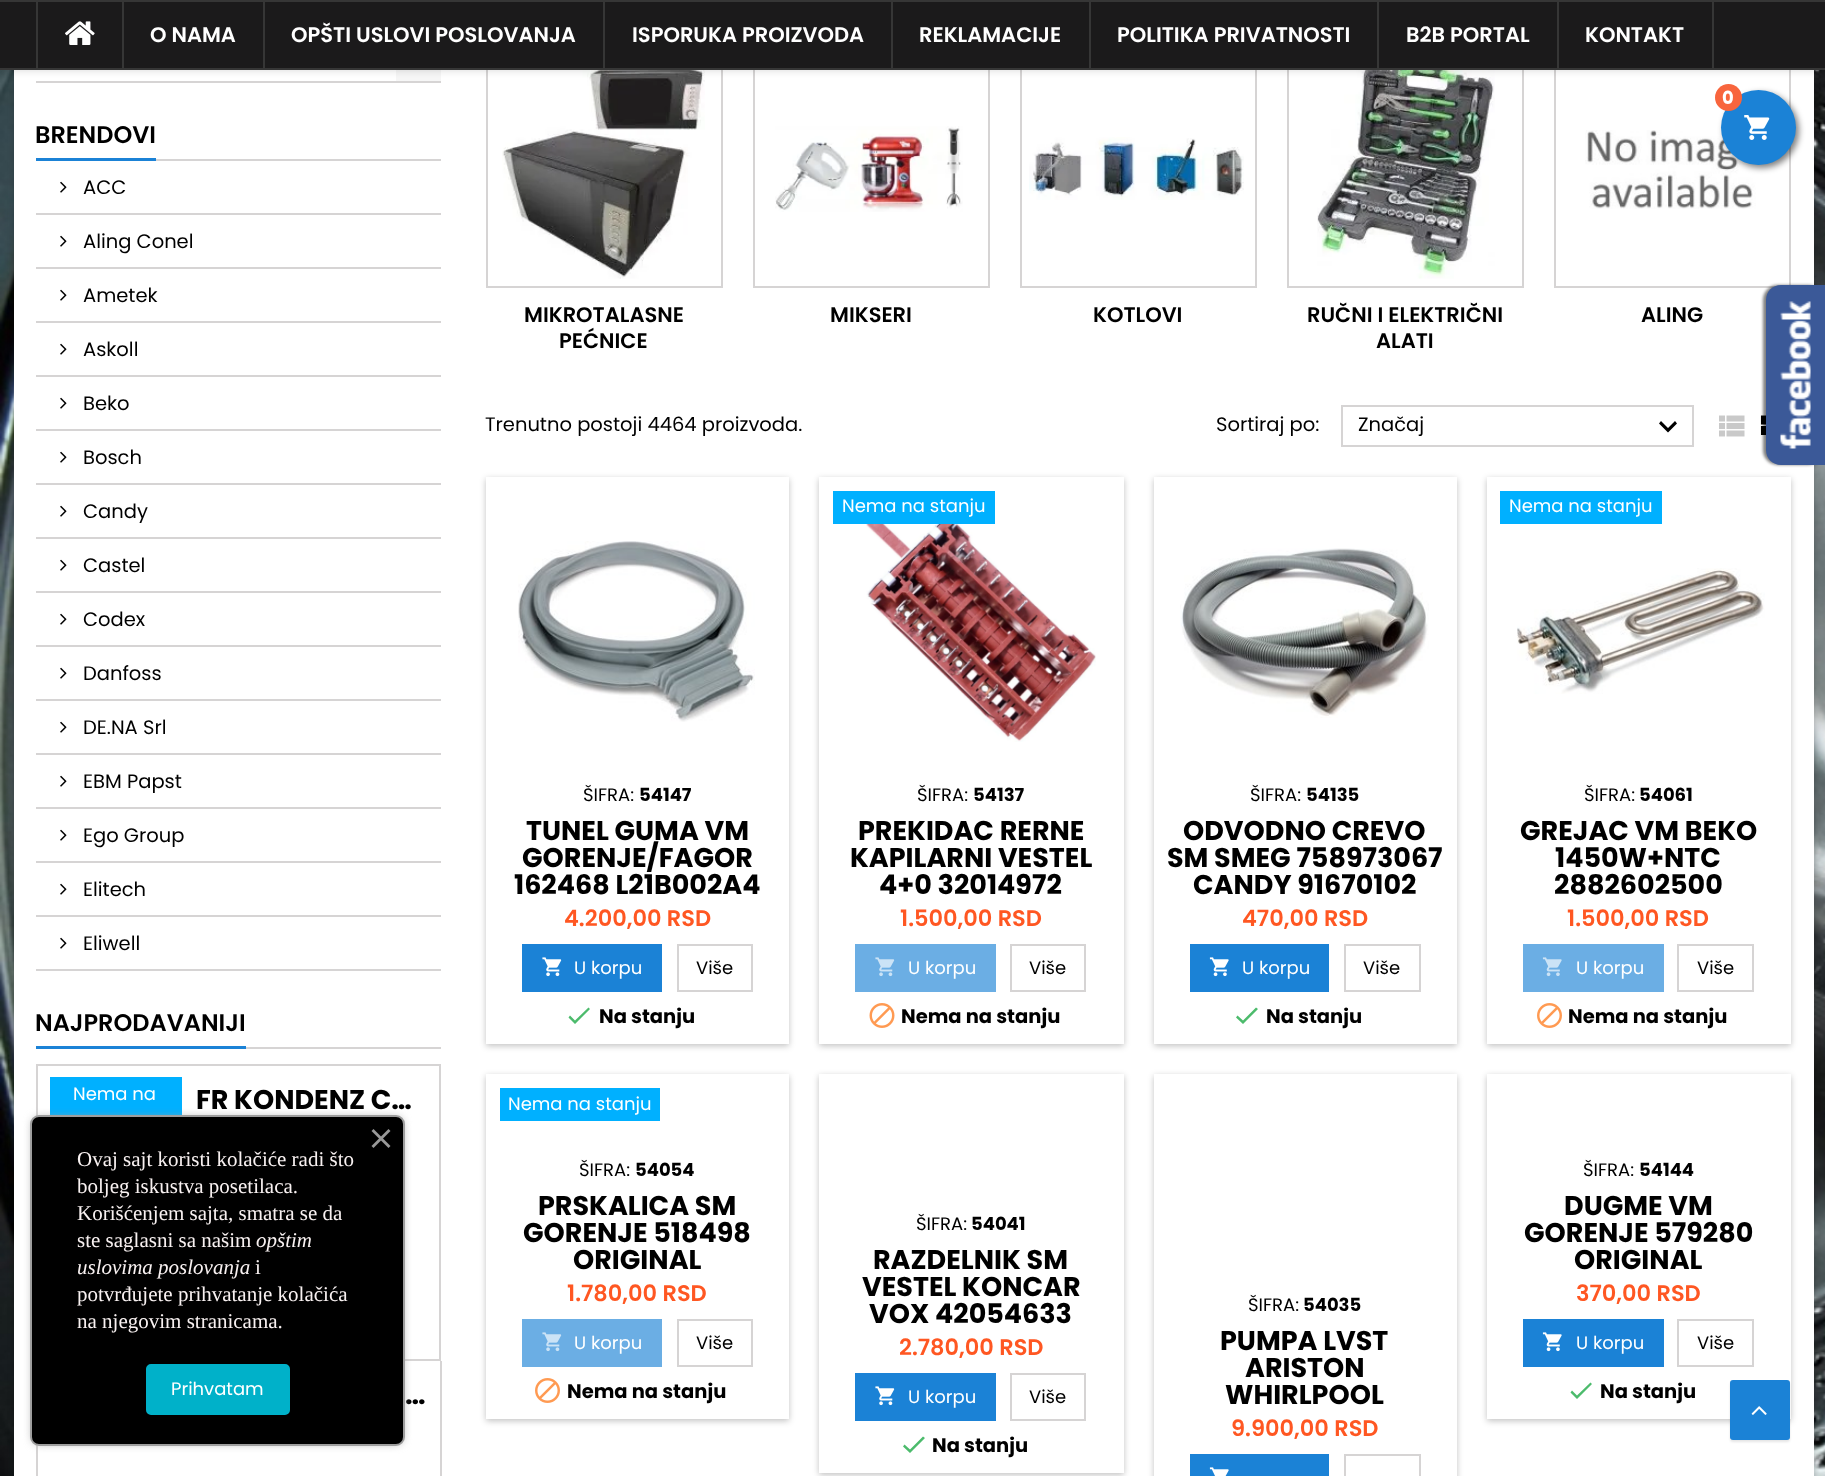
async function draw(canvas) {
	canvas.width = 1825;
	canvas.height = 1476;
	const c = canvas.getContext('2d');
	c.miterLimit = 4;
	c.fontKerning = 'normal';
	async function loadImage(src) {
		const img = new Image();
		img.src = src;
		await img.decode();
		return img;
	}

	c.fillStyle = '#fff';
	c.fillRect(0, 0, 1825, 1476);
	c.drawImage(await loadImage('img1.png'), 0, 70, 1825, 1406);
	c.fillStyle = '#00000033';
	c.filter = 'blur(3px)';
	c.beginPath();
	c.rect(14, -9, 1800, 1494);
	c.fill();
	c.filter = 'none';
	for (const [x, y, w, h, color] of [
		[14, 70, 1800, 1406, '#fff'],
		[396, 70, 45, 11, '#f6f6f6'],
		[36, 81, 405, 2, '#d6d4d4'],
	]) {
		c.fillStyle = color;
		c.fillRect(x, y, w, h);
	}
	c.strokeStyle = '#d6d4d4';
	c.lineWidth = 2;
	c.strokeRect(487, 52, 235, 235);
	c.drawImage(await loadImage('img5.png'), 502, 70, 203, 209);
	c.strokeRect(754, 52, 235, 235);
	c.strokeRect(1021, 52, 235, 235);
	c.strokeRect(1288, 52, 235, 235);
	c.drawImage(await loadImage('img8.png'), 1317, 70, 178, 209);
	c.strokeRect(1555, 52, 235, 235);
	c.fillStyle = '#0000001a';
	c.filter = 'blur(3px)';
	c.beginPath();
	c.rect(0, 3, 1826, 69);
	c.fill();
	c.filter = 'none';
	for (const [x, y, w, h, color] of [
		[0, 2, 1825, 66, '#1b1a1b'],
		[0, 0, 1825, 2, '#363636'],
		[0, 68, 1825, 2, '#363636'],
		[36, 2, 2, 66, '#363636'],
	]) {
		c.fillStyle = color;
		c.fillRect(x, y, w, h);
	}
	c.drawImage(await loadImage('img2.png'), 65, 21, 30, 24);
	c.fillRect(122, 2, 2, 66);
	c.font = '600 21px Poppins';
	c.fillStyle = '#fff';
	c.fillText('O NAMA', 150, 42);
	c.fillStyle = '#363636';
	c.fillRect(263, 2, 2, 66);
	c.fillStyle = '#fff';
	c.fillText('OPŠTI USLOVI POSLOVANJA', 291, 42);
	c.fillStyle = '#363636';
	c.fillRect(603, 2, 2, 66);
	c.fillStyle = '#fff';
	c.fillText('ISPORUKA PROIZVODA', 632, 42);
	c.fillStyle = '#363636';
	c.fillRect(891, 2, 2, 66);
	c.fillStyle = '#fff';
	c.fillText('REKLAMACIJE', 919, 42);
	c.fillStyle = '#363636';
	c.fillRect(1089, 2, 2, 66);
	c.fillStyle = '#fff';
	c.fillText('POLITIKA PRIVATNOSTI', 1117, 42);
	c.fillStyle = '#363636';
	c.fillRect(1377, 2, 2, 66);
	c.fillStyle = '#fff';
	c.fillText('B2B PORTAL', 1406, 42);
	c.fillStyle = '#363636';
	c.fillRect(1712, 2, 2, 66);
	c.fillRect(1557, 2, 2, 66);
	c.fillStyle = '#fff';
	c.fillText('KONTAKT', 1585, 42);
	c.drawImage(await loadImage('img9.png'), 1585, 130, 176, 79);
	c.fillStyle = '#00000080';
	c.filter = 'blur(3px)';
	c.beginPath();
	c.roundRect(1724, 93, 75, 75, 37.5);
	c.fill();
	c.filter = 'none';
	c.fillStyle = '#1b82d6';
	c.beginPath();
	c.arc(1758.5, 127.5, 37.5, 0, 2 * Math.PI);
	c.fill();
	c.fillStyle = '#f8653d';
	c.beginPath();
	c.arc(1728.5, 97.5, 13.5, 0, 2 * Math.PI);
	c.fill();
	c.font = 'bold 18px Poppins';
	c.fillStyle = '#fff';
	c.fillText('0', 1722, 104);
	c.drawImage(await loadImage('img3.png'), 1744, 115, 26, 25);
	c.fillStyle = '#d6d4d4';
	c.fillRect(156, 159, 285, 2);
	c.fillStyle = '#1b82d6';
	c.fillRect(36, 158, 120, 3);
	c.font = '600 24px Poppins';
	c.fillStyle = '#000';
	c.fillText('BRENDOVI', 35, 143);
	c.fillStyle = '#d6d4d4';
	c.fillRect(36, 213, 405, 2);
	c.drawImage(await loadImage('img4.png'), 60, 181, 7, 12);
	c.font = '19.5px Poppins';
	c.fillStyle = '#000';
	c.fillText('ACC', 83, 194);
	c.fillStyle = '#d6d4d4';
	c.fillRect(36, 267, 405, 2);
	c.drawImage(await loadImage('img4.png'), 60, 235, 7, 12);
	c.fillStyle = '#000';
	c.fillText('Aling Conel', 83, 248);
	c.fillStyle = '#d6d4d4';
	c.fillRect(36, 321, 405, 2);
	c.drawImage(await loadImage('img4.png'), 60, 289, 7, 12);
	c.fillStyle = '#000';
	c.fillText('Ametek', 83, 302);
	c.fillStyle = '#d6d4d4';
	c.fillRect(36, 375, 405, 2);
	c.drawImage(await loadImage('img4.png'), 60, 343, 7, 12);
	c.fillStyle = '#000';
	c.fillText('Askoll', 83, 356);
	c.fillStyle = '#d6d4d4';
	c.fillRect(36, 429, 405, 2);
	c.drawImage(await loadImage('img4.png'), 60, 397, 7, 12);
	c.fillStyle = '#000';
	c.fillText('Beko', 83, 410);
	c.fillStyle = '#d6d4d4';
	c.fillRect(36, 483, 405, 2);
	c.drawImage(await loadImage('img4.png'), 60, 451, 7, 12);
	c.fillStyle = '#000';
	c.fillText('Bosch', 83, 464);
	c.fillStyle = '#d6d4d4';
	c.fillRect(36, 537, 405, 2);
	c.drawImage(await loadImage('img4.png'), 60, 505, 7, 12);
	c.fillStyle = '#000';
	c.fillText('Candy', 83, 518);
	c.fillStyle = '#d6d4d4';
	c.fillRect(36, 591, 405, 2);
	c.drawImage(await loadImage('img4.png'), 60, 559, 7, 12);
	c.fillStyle = '#000';
	c.fillText('Castel', 83, 572);
	c.fillStyle = '#d6d4d4';
	c.fillRect(36, 645, 405, 2);
	c.drawImage(await loadImage('img4.png'), 60, 613, 7, 12);
	c.fillStyle = '#000';
	c.fillText('Codex', 83, 626);
	c.fillStyle = '#d6d4d4';
	c.fillRect(36, 699, 405, 2);
	c.drawImage(await loadImage('img4.png'), 60, 667, 7, 12);
	c.fillStyle = '#000';
	c.fillText('Danfoss', 83, 680);
	c.fillStyle = '#d6d4d4';
	c.fillRect(36, 753, 405, 2);
	c.drawImage(await loadImage('img4.png'), 60, 721, 7, 12);
	c.fillStyle = '#000';
	c.fillText('DE.NA Srl', 83, 734);
	c.fillStyle = '#d6d4d4';
	c.fillRect(36, 807, 405, 2);
	c.drawImage(await loadImage('img4.png'), 60, 775, 7, 12);
	c.fillStyle = '#000';
	c.fillText('EBM Papst', 83, 788);
	c.fillStyle = '#d6d4d4';
	c.fillRect(36, 861, 405, 2);
	c.drawImage(await loadImage('img4.png'), 60, 829, 7, 12);
	c.fillStyle = '#000';
	c.fillText('Ego Group', 83, 842);
	c.fillStyle = '#d6d4d4';
	c.fillRect(36, 915, 405, 2);
	c.drawImage(await loadImage('img4.png'), 60, 883, 7, 12);
	c.fillStyle = '#000';
	c.fillText('Elitech', 83, 896);
	c.fillStyle = '#d6d4d4';
	c.fillRect(36, 969, 405, 2);
	c.drawImage(await loadImage('img4.png'), 60, 937, 7, 12);
	c.fillStyle = '#000';
	c.fillText('Eliwell', 83, 950);
	c.fillStyle = '#d6d4d4';
	c.fillRect(246, 1047, 195, 2);
	c.fillStyle = '#1b82d6';
	c.fillRect(36, 1046, 210, 3);
	c.font = '600 24px Poppins';
	c.fillStyle = '#000';
	c.fillText('NAJPRODAVANIJI', 35, 1031);
	c.strokeRect(37, 1065, 403, 295);
	c.fillStyle = '#00b0ff';
	c.fillRect(50, 1077, 132, 38);
	c.font = '18px Poppins';
	c.fillStyle = '#fff';
	c.fillText('Nema na', 73, 1100);
	c.font = 'bold 27px Poppins';
	c.fillStyle = '#000';
	c.fillText('FR KONDENZ C…', 196, 1109);
	c.fillStyle = '#d6d4d4';
	c.fillRect(440, 1361, 2, 115);
	c.fillRect(36, 1445, 2, 31);
	c.fillStyle = '#000';
	c.fillText('…', 405, 1404);
	c.font = '600 21px Poppins';
	c.fillText('MIKROTALASNE', 524, 322);
	c.fillText('PEĆNICE', 559, 348);
	c.drawImage(await loadImage('img6.png'), 775, 126, 188, 86);
	c.fillText('MIKSERI', 830, 322);
	c.drawImage(await loadImage('img7.png'), 1029, 137, 215, 63);
	for (const [text, x, y] of [
		['KOTLOVI', 1093, 322],
		['RUČNI I ELEKTRIČNI', 1307, 322],
		['ALATI', 1376, 348],
		['ALING', 1641, 322],
	]) {
		c.fillText(text, x, y);
	}
	c.font = '19.5px Poppins';
	c.fillText('Trenutno postoji 4464 proizvoda.', 485, 431);
	c.fillText('Sortiraj po:', 1216, 431);
	c.strokeRect(1342, 406, 351, 40);
	c.fillText('Značaj', 1358, 431);
	c.beginPath();
	c.moveTo(1661, 421);
	c.lineTo(1668, 428);
	c.lineTo(1675, 421);
	c.lineTo(1677, 423.5);
	c.lineTo(1668, 432.5);
	c.lineTo(1659, 423.5);
	c.closePath();
	c.fill();
	c.drawImage(await loadImage('img10.png'), 1719, 415, 26, 22);
	c.drawImage(await loadImage('img11.png'), 1760, 415, 6, 20);
	c.save();
	c.beginPath();
	c.moveTo(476, 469);
	c.lineTo(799, 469);
	c.lineTo(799, 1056);
	c.lineTo(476, 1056);
	c.closePath();
	c.moveTo(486, 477);
	c.lineTo(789, 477);
	c.lineTo(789, 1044);
	c.lineTo(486, 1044);
	c.closePath();
	c.clip('evenodd');
	c.fillStyle = '#0000003d';
	c.filter = 'blur(3px)';
	c.beginPath();
	c.rect(486, 479, 303, 567);
	c.fill();
	c.filter = 'none';
	c.restore();
	c.drawImage(await loadImage('img12.png'), 518, 541, 237, 181);
	c.font = '18px Poppins';
	c.fillText('ŠIFRA:', 583, 801);
	c.font = 'bold 18px Poppins';
	c.fillText('54147', 639, 801);
	c.font = 'bold 27px Poppins';
	for (const [text, x, y] of [
		['TUNEL GUMA VM', 526, 840],
		['GORENJE/FAGOR', 522, 867],
		['162468 L21B002A4', 514, 894],
	]) {
		c.fillText(text, x, y);
	}
	c.font = '600 22.5px Poppins';
	c.fillStyle = '#ff5722';
	c.fillText('4.200,00 RSD', 564, 926);
	c.fillStyle = '#1b82d6';
	c.fillRect(522, 944, 140, 48);
	c.drawImage(await loadImage('img13.png'), 542, 957, 20, 20);
	c.font = '18px Poppins';
	c.fillStyle = '#fff';
	c.fillText('U korpu', 574, 974);
	c.strokeRect(678, 945, 74, 46);
	c.fillStyle = '#000';
	c.fillText('Više', 696, 974);
	c.fillStyle = '#4cbb6c';
	c.beginPath();
	c.moveTo(575, 1020.5);
	c.lineTo(588.5, 1007.5);
	c.lineTo(590, 1009);
	c.lineTo(575, 1024);
	c.lineTo(568.5, 1017.5);
	c.lineTo(570, 1015.5);
	c.closePath();
	c.fill();
	c.font = 'bold 19.5px Poppins';
	c.fillStyle = '#000';
	c.fillText('Na stanju', 599, 1023);
	c.fillStyle = '#0000003d';
	c.filter = 'blur(3px)';
	c.beginPath();
	c.rect(819, 479, 305, 567);
	c.fill();
	c.filter = 'none';
	c.fillStyle = '#fff';
	c.fillRect(819, 477, 305, 567);
	c.drawImage(await loadImage('img14.png'), 866, 515, 230, 227);
	c.fillStyle = '#00b0ff';
	c.fillRect(833, 491, 162, 33);
	c.font = '18px Poppins';
	c.fillStyle = '#fff';
	c.fillText('Nema na stanju', 842, 512);
	c.fillStyle = '#000';
	c.fillText('ŠIFRA:', 917, 801);
	c.font = 'bold 18px Poppins';
	c.fillText('54137', 973, 801);
	c.font = 'bold 27px Poppins';
	for (const [text, x, y] of [
		['PREKIDAC RERNE', 858, 840],
		['KAPILARNI VESTEL', 850, 867],
		['4+0 32014972', 879, 894],
	]) {
		c.fillText(text, x, y);
	}
	c.font = '600 22.5px Poppins';
	c.fillStyle = '#ff5722';
	c.fillText('1.500,00 RSD', 900, 926);
	c.fillStyle = '#6baee4';
	c.fillRect(855, 944, 141, 48);
	c.drawImage(await loadImage('img15.png'), 875, 957, 20, 20);
	c.font = '18px Poppins';
	c.fillStyle = '#fff';
	c.fillText('U korpu', 908, 974);
	c.strokeRect(1011, 945, 74, 46);
	c.fillStyle = '#000';
	c.fillText('Više', 1029, 974);
	c.drawImage(await loadImage('img16.png'), 869, 1003, 26, 25);
	c.font = 'bold 19.5px Poppins';
	c.fillText('Nema na stanju', 901, 1023);
	c.fillStyle = '#0000003d';
	c.filter = 'blur(3px)';
	c.beginPath();
	c.rect(1154, 479, 303, 567);
	c.fill();
	c.filter = 'none';
	c.fillStyle = '#fff';
	c.fillRect(1154, 477, 303, 567);
	c.drawImage(await loadImage('img17.png'), 1180, 548, 249, 170);
	c.font = '18px Poppins';
	c.fillStyle = '#000';
	c.fillText('ŠIFRA:', 1250, 801);
	c.font = 'bold 18px Poppins';
	c.fillText('54135', 1306, 801);
	c.font = 'bold 27px Poppins';
	for (const [text, x, y] of [
		['ODVODNO CREVO', 1183, 840],
		['SM SMEG 758973067', 1167, 867],
		['CANDY 91670102', 1193, 894],
	]) {
		c.fillText(text, x, y);
	}
	c.font = '600 22.5px Poppins';
	c.fillStyle = '#ff5722';
	c.fillText('470,00 RSD', 1242, 926);
	c.fillStyle = '#1b82d6';
	c.fillRect(1190, 944, 139, 48);
	c.drawImage(await loadImage('img18.png'), 1209, 957, 20, 20);
	c.font = '18px Poppins';
	c.fillStyle = '#fff';
	c.fillText('U korpu', 1242, 974);
	c.strokeRect(1345, 945, 75, 46);
	c.fillStyle = '#000';
	c.fillText('Više', 1363, 974);
	c.fillStyle = '#4cbb6c';
	c.beginPath();
	c.moveTo(1243, 1020.5);
	c.lineTo(1256, 1007.5);
	c.lineTo(1258, 1009);
	c.lineTo(1243, 1024);
	c.lineTo(1236, 1017.5);
	c.lineTo(1237.5, 1015.5);
	c.closePath();
	c.fill();
	c.font = 'bold 19.5px Poppins';
	c.fillStyle = '#000';
	c.fillText('Na stanju', 1266, 1023);
	c.save();
	c.beginPath();
	c.moveTo(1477, 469);
	c.lineTo(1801, 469);
	c.lineTo(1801, 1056);
	c.lineTo(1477, 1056);
	c.closePath();
	c.moveTo(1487, 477);
	c.lineTo(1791, 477);
	c.lineTo(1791, 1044);
	c.lineTo(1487, 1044);
	c.closePath();
	c.clip('evenodd');
	c.fillStyle = '#0000003d';
	c.filter = 'blur(3px)';
	c.beginPath();
	c.rect(1487, 479, 304, 567);
	c.fill();
	c.filter = 'none';
	c.restore();
	c.fillStyle = '#00b0ff';
	c.fillRect(1500, 491, 162, 33);
	c.font = '18px Poppins';
	c.fillStyle = '#fff';
	c.fillText('Nema na stanju', 1509, 512);
	c.drawImage(await loadImage('img19.png'), 1517, 568, 248, 126);
	c.fillStyle = '#000';
	c.fillText('ŠIFRA:', 1584, 801);
	c.font = 'bold 18px Poppins';
	c.fillText('54061', 1639, 801);
	c.font = 'bold 27px Poppins';
	for (const [text, x, y] of [
		['GREJAC VM BEKO', 1520, 840],
		['1450W+NTC', 1555, 867],
		['2882602500', 1554, 894],
	]) {
		c.fillText(text, x, y);
	}
	c.font = '600 22.5px Poppins';
	c.fillStyle = '#ff5722';
	c.fillText('1.500,00 RSD', 1567, 926);
	c.fillStyle = '#6baee4';
	c.fillRect(1523, 944, 141, 48);
	c.drawImage(await loadImage('img20.png'), 1542, 957, 20, 20);
	c.font = '18px Poppins';
	c.fillStyle = '#fff';
	c.fillText('U korpu', 1576, 974);
	c.strokeRect(1678, 945, 75, 46);
	c.fillStyle = '#000';
	c.fillText('Više', 1697, 974);
	c.drawImage(await loadImage('img21.png'), 1537, 1003, 25, 25);
	c.font = 'bold 19.5px Poppins';
	c.fillText('Nema na stanju', 1568, 1023);
	c.save();
	c.beginPath();
	c.moveTo(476, 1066);
	c.lineTo(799, 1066);
	c.lineTo(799, 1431);
	c.lineTo(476, 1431);
	c.closePath();
	c.moveTo(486, 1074);
	c.lineTo(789, 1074);
	c.lineTo(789, 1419);
	c.lineTo(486, 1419);
	c.closePath();
	c.clip('evenodd');
	c.fillStyle = '#0000003d';
	c.filter = 'blur(3px)';
	c.beginPath();
	c.rect(486, 1076, 303, 345);
	c.fill();
	c.filter = 'none';
	c.restore();
	c.fillStyle = '#00b0ff';
	c.fillRect(500, 1088, 160, 33);
	c.font = '18px Poppins';
	c.fillStyle = '#fff';
	c.fillText('Nema na stanju', 508, 1110);
	c.fillStyle = '#000';
	c.fillText('ŠIFRA:', 579, 1176);
	c.font = 'bold 18px Poppins';
	c.fillText('54054', 635, 1176);
	c.font = 'bold 27px Poppins';
	for (const [text, x, y] of [
		['PRSKALICA SM', 538, 1215],
		['GORENJE 518498', 523, 1242],
		['ORIGINAL', 573, 1269],
	]) {
		c.fillText(text, x, y);
	}
	c.font = '600 22.5px Poppins';
	c.fillStyle = '#ff5722';
	c.fillText('1.780,00 RSD', 567, 1301);
	c.fillStyle = '#6baee4';
	c.fillRect(522, 1319, 140, 48);
	c.drawImage(await loadImage('img15.png'), 542, 1332, 20, 20);
	c.font = '18px Poppins';
	c.fillStyle = '#fff';
	c.fillText('U korpu', 574, 1349);
	c.strokeRect(678, 1320, 74, 46);
	c.fillStyle = '#000';
	c.fillText('Više', 696, 1349);
	c.drawImage(await loadImage('img21.png'), 535, 1378, 25, 25);
	c.font = 'bold 19.5px Poppins';
	c.fillText('Nema na stanju', 567, 1398);
	c.fillStyle = '#0000003d';
	c.filter = 'blur(3px)';
	c.beginPath();
	c.rect(819, 1076, 305, 399);
	c.fill();
	c.filter = 'none';
	c.fillStyle = '#fff';
	c.fillRect(819, 1074, 305, 399);
	c.font = '18px Poppins';
	c.fillStyle = '#000';
	c.fillText('ŠIFRA:', 916, 1230);
	c.font = 'bold 18px Poppins';
	c.fillText('54041', 971, 1230);
	c.font = 'bold 27px Poppins';
	for (const [text, x, y] of [
		['RAZDELNIK SM', 873, 1269],
		['VESTEL KONCAR', 862, 1296],
		['VOX 42054633', 869, 1323],
	]) {
		c.fillText(text, x, y);
	}
	c.font = '600 22.5px Poppins';
	c.fillStyle = '#ff5722';
	c.fillText('2.780,00 RSD', 899, 1355);
	c.fillStyle = '#1b82d6';
	c.fillRect(855, 1373, 141, 48);
	c.drawImage(await loadImage('img13.png'), 875, 1386, 20, 20);
	c.font = '18px Poppins';
	c.fillStyle = '#fff';
	c.fillText('U korpu', 908, 1403);
	c.strokeRect(1011, 1374, 74, 46);
	c.fillStyle = '#000';
	c.fillText('Više', 1029, 1403);
	c.fillStyle = '#4cbb6c';
	c.beginPath();
	c.moveTo(910, 1449.5);
	c.lineTo(923, 1436.5);
	c.lineTo(925, 1438);
	c.lineTo(910, 1453);
	c.lineTo(903, 1446.5);
	c.lineTo(904.5, 1444.5);
	c.closePath();
	c.fill();
	c.font = 'bold 19.5px Poppins';
	c.fillStyle = '#000';
	c.fillText('Na stanju', 932, 1452);
	c.fillStyle = '#0000003d';
	c.filter = 'blur(3px)';
	c.beginPath();
	c.rect(1154, 1076, 303, 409);
	c.fill();
	c.filter = 'none';
	c.fillStyle = '#fff';
	c.fillRect(1154, 1074, 303, 402);
	c.font = '18px Poppins';
	c.fillStyle = '#000';
	c.fillText('ŠIFRA:', 1248, 1311);
	c.font = 'bold 18px Poppins';
	c.fillText('54035', 1303, 1311);
	c.font = 'bold 27px Poppins';
	for (const [text, x, y] of [
		['PUMPA LVST', 1220, 1350],
		['ARISTON', 1245, 1377],
		['WHIRLPOOL', 1225, 1404],
	]) {
		c.fillText(text, x, y);
	}
	c.font = '600 22.5px Poppins';
	c.fillStyle = '#ff5722';
	c.fillText('9.900,00 RSD', 1231, 1436);
	c.fillStyle = '#1b82d6';
	c.fillRect(1190, 1454, 139, 22);
	c.drawImage(await loadImage('img22.png'), 1209, 1467, 20, 9);
	c.strokeRect(1345, 1455, 75, 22);
	c.save();
	c.beginPath();
	c.moveTo(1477, 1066);
	c.lineTo(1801, 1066);
	c.lineTo(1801, 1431);
	c.lineTo(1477, 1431);
	c.closePath();
	c.moveTo(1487, 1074);
	c.lineTo(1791, 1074);
	c.lineTo(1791, 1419);
	c.lineTo(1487, 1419);
	c.closePath();
	c.clip('evenodd');
	c.fillStyle = '#0000003d';
	c.filter = 'blur(3px)';
	c.beginPath();
	c.rect(1487, 1076, 304, 345);
	c.fill();
	c.filter = 'none';
	c.restore();
	c.font = '18px Poppins';
	c.fillStyle = '#000';
	c.fillText('ŠIFRA:', 1583, 1176);
	c.font = 'bold 18px Poppins';
	c.fillText('54144', 1639, 1176);
	c.font = 'bold 27px Poppins';
	for (const [text, x, y] of [
		['DUGME VM', 1564, 1215],
		['GORENJE 579280', 1524, 1242],
		['ORIGINAL', 1574, 1269],
	]) {
		c.fillText(text, x, y);
	}
	c.font = '600 22.5px Poppins';
	c.fillStyle = '#ff5722';
	c.fillText('370,00 RSD', 1576, 1301);
	c.fillStyle = '#1b82d6';
	c.fillRect(1523, 1319, 141, 48);
	c.drawImage(await loadImage('img18.png'), 1542, 1332, 20, 20);
	c.font = '18px Poppins';
	c.fillStyle = '#fff';
	c.fillText('U korpu', 1576, 1349);
	c.strokeRect(1678, 1320, 75, 46);
	c.fillStyle = '#000';
	c.fillText('Više', 1697, 1349);
	c.fillStyle = '#4cbb6c';
	c.beginPath();
	c.moveTo(1577, 1395.5);
	c.lineTo(1590.5, 1382.5);
	c.lineTo(1592, 1384);
	c.lineTo(1577, 1399);
	c.lineTo(1570.5, 1392.5);
	c.lineTo(1572, 1390.5);
	c.closePath();
	c.fill();
	c.font = 'bold 19.5px Poppins';
	c.fillStyle = '#000';
	c.fillText('Na stanju', 1600, 1398);
	c.fillStyle = '#00000080';
	c.filter = 'blur(1.5px)';
	c.beginPath();
	c.roundRect(1763, 285, 60, 180, 15);
	c.fill();
	c.filter = 'none';
	c.fillStyle = '#3b5998';
	c.beginPath();
	c.moveTo(1781, 285);
	c.lineTo(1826, 285);
	c.lineTo(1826, 465);
	c.lineTo(1781, 465);
	c.bezierCurveTo(1772.5, 465, 1766, 458.5, 1766, 450);
	c.lineTo(1766, 300);
	c.bezierCurveTo(1766, 291.5, 1772.5, 285, 1781, 285);
	c.closePath();
	c.fill();
	c.drawImage(await loadImage('img23.png'), 1780, 301, 31, 148);
	c.fillStyle = '#0000001a';
	c.filter = 'blur(1px)';
	c.beginPath();
	c.roundRect(1730, 1382, 60, 60, 3);
	c.fill();
	c.filter = 'none';
	c.fillStyle = '#1b82d6';
	c.beginPath();
	c.roundRect(1730, 1380, 60, 60, 3);
	c.fill();
	c.drawImage(await loadImage('img24.png'), 1751, 1406, 16, 9);
	c.fillStyle = '#9e9e9e';
	c.filter = 'blur(5px)';
	c.beginPath();
	c.roundRect(33, 1118, 369, 325, 6);
	c.fill();
	c.filter = 'none';
	c.fillStyle = '#000';
	c.beginPath();
	c.roundRect(31, 1116, 373, 329, 8);
	c.fill();
	c.strokeStyle = '#9e9e9e';
	c.stroke();
	c.fillStyle = '#999';
	c.beginPath();
	c.moveTo(371.5, 1146);
	c.lineTo(388.5, 1129);
	c.lineTo(390.5, 1131);
	c.lineTo(373.5, 1148);
	c.closePath();
	c.fill();
	c.beginPath();
	c.moveTo(373.5, 1129);
	c.lineTo(390.5, 1146);
	c.lineTo(388.5, 1148);
	c.lineTo(371.5, 1131);
	c.closePath();
	c.fill();
	c.font = '21px Liberation Serif';
	c.fillStyle = '#f8f1f1';
	for (const [text, x, y] of [
		['Ovaj sajt koristi kolačiće radi što', 77, 1166],
		['boljeg iskustva posetilaca.', 77, 1193],
		['Korišćenjem sajta, smatra se da', 77, 1220],
		['ste saglasni sa našim', 77, 1247],
	]) {
		c.fillText(text, x, y);
	}
	c.font = 'italic 21px Liberation Serif';
	c.fillText('opštim', 256, 1247);
	c.fillText('uslovima poslovanja', 77, 1274);
	c.font = '21px Liberation Serif';
	for (const [text, x, y] of [
		['i', 255, 1274],
		['potvrđujete prihvatanje kolačića', 77, 1301],
		['na njegovim stranicama.', 77, 1328],
	]) {
		c.fillText(text, x, y);
	}
	c.fillStyle = '#00b1c9';
	c.beginPath();
	c.roundRect(147, 1365, 142, 49, 4);
	c.fill();
	c.strokeStyle = '#00b1c9';
	c.stroke();
	c.font = '18px Poppins';
	c.fillStyle = '#fff';
	c.fillText('Prihvatam', 171, 1395);
}

draw(document.querySelector('canvas'));
